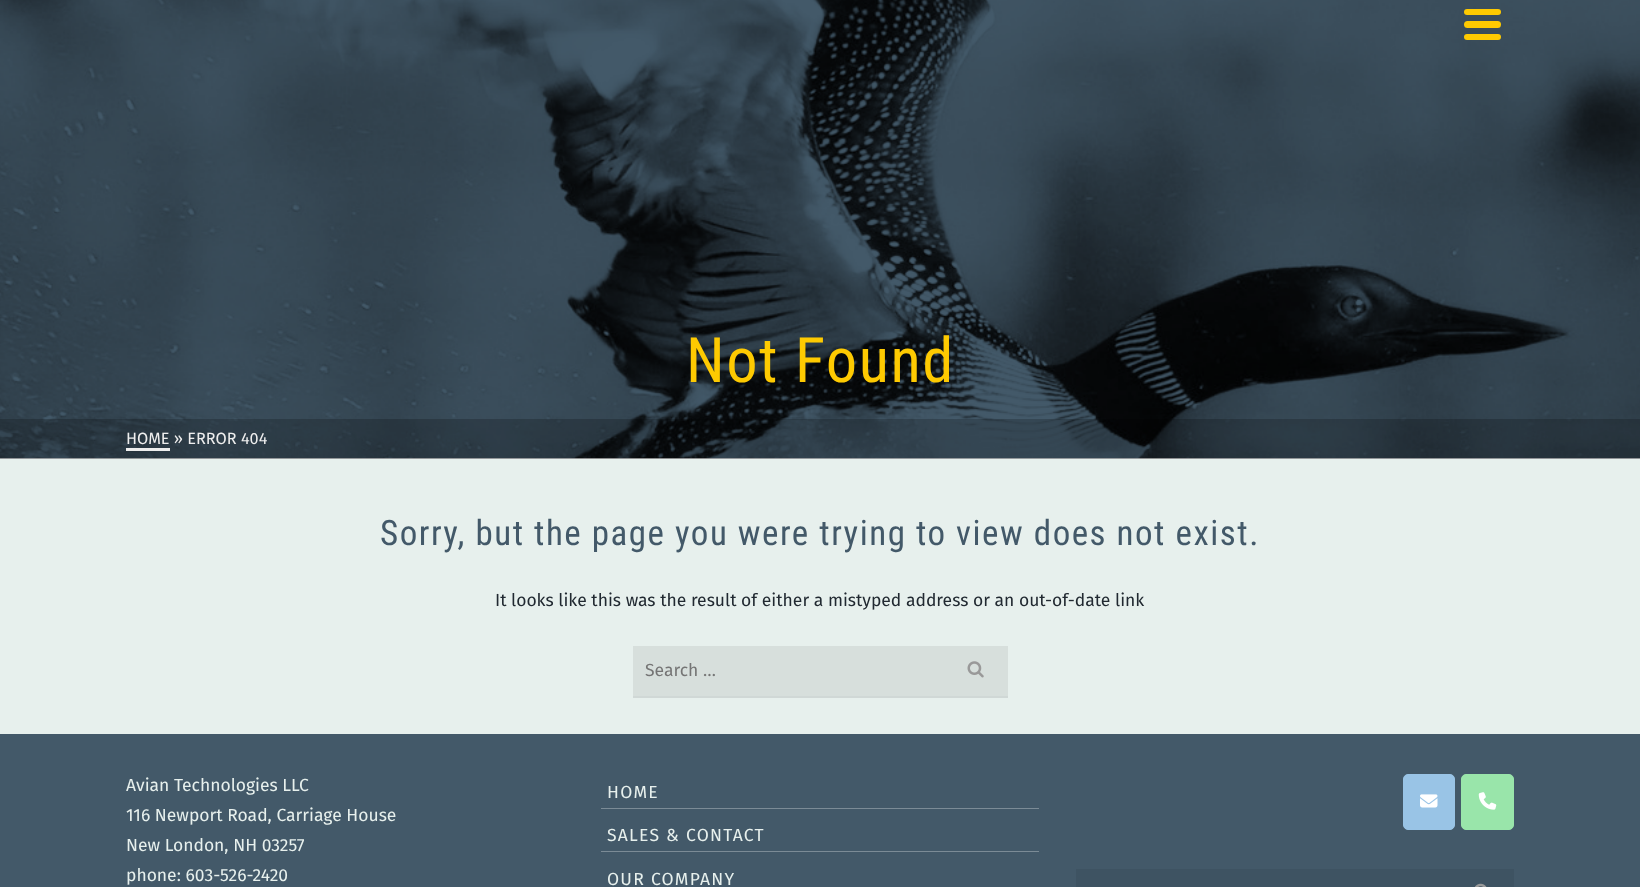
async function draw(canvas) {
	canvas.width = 1640;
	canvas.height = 887;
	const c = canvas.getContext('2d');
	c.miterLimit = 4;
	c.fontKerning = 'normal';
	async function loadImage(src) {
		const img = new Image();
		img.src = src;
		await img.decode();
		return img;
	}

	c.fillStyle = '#e7f0ed';
	c.fillRect(0, 0, 1640, 887);
	c.fillStyle = '#e5e5e5';
	c.fillRect(0, 458, 1640, 1);
	c.drawImage(await loadImage('img1.png'), 0, 0, 1640, 459);
	c.fillStyle = '#feca01';
	c.beginPath();
	c.roundRect(1464, 9, 37, 6, 3);
	c.fill();
	c.beginPath();
	c.roundRect(1464, 21, 37, 7, 3.5);
	c.fill();
	c.beginPath();
	c.roundRect(1464, 34, 37, 6, 3);
	c.fill();
	c.letterSpacing = '1.5px';
	c.font = '62.5px Roboto Condensed';
	c.fillText('Not Found', 686, 382);
	c.fillStyle = '#00000033';
	c.fillRect(0, 419, 1640, 40);
	c.letterSpacing = '0px';
	c.font = '16.25px Fira Sans';
	c.fillStyle = '#eee';
	c.fillText('HOME » ERROR 404', 126, 444);
	c.fillRect(126, 448, 44, 3);
	c.letterSpacing = '1.5px';
	c.font = '35px Roboto Condensed';
	c.fillStyle = '#435969';
	c.fillText('Sorry, but the page you were trying to view does not exist.', 380, 545);
	c.letterSpacing = '0px';
	c.font = '17.5px Fira Sans';
	c.fillStyle = '#212931';
	c.fillText('It looks like this was the result of either a mistyped address or an out-of-date link', 495, 606);
	c.fillStyle = '#d0d8d6';
	c.beginPath();
	c.moveTo(633, 696);
	c.lineTo(633, 698);
	c.lineTo(1008, 698);
	c.lineTo(1008, 648);
	c.lineTo(1008, 696);
	c.closePath();
	c.fill();
	c.fillStyle = '#d7dfdc';
	c.fillRect(633, 646, 375, 50);
	c.fillStyle = '#757575';
	c.fillText('Search …', 645, 676);
	c.drawImage(await loadImage('img2.png'), 967, 661, 17, 17);
	c.fillStyle = '#435969';
	c.fillRect(0, 734, 1640, 153);
	c.fillStyle = '#e7f0ed';
	for (const [text, x, y] of [
		['Avian Technologies LLC', 126, 791],
		['116 Newport Road, Carriage House', 126, 821],
		['New London, NH 03257', 126, 851],
		['phone: 603-526-2420', 126, 881],
	]) {
		c.fillText(text, x, y);
	}
	c.fillStyle = '#7b8b96';
	c.fillRect(601, 808, 438, 1);
	c.letterSpacing = '1.25px';
	c.fillStyle = '#e7f0ed';
	c.fillText('HOME', 607, 798);
	c.fillStyle = '#7b8b96';
	c.fillRect(601, 851, 438, 1);
	c.fillStyle = '#e7f0ed';
	c.fillText('SALES & CONTACT', 607, 841);
	c.fillText('OUR COMPANY', 607, 885);
	c.fillStyle = '#99c4e6';
	c.beginPath();
	c.roundRect(1403.5, 774.5, 51, 55, 4.5);
	c.fill();
	c.strokeStyle = '#99c4e6';
	c.stroke();
	c.drawImage(await loadImage('img3.png'), 1420, 794, 18, 14);
	c.fillStyle = '#99e5aa';
	c.beginPath();
	c.roundRect(1461.5, 774.5, 52, 55, 4.5);
	c.fill();
	c.strokeStyle = '#99e5aa';
	c.stroke();
	c.drawImage(await loadImage('img4.png'), 1478, 792, 19, 18);
	c.fillStyle = '#3e5362';
	c.fillRect(1076, 869, 438, 18);
	c.drawImage(await loadImage('img5.png'), 1475, 883, 12, 4);
}

draw(document.querySelector('canvas'));
